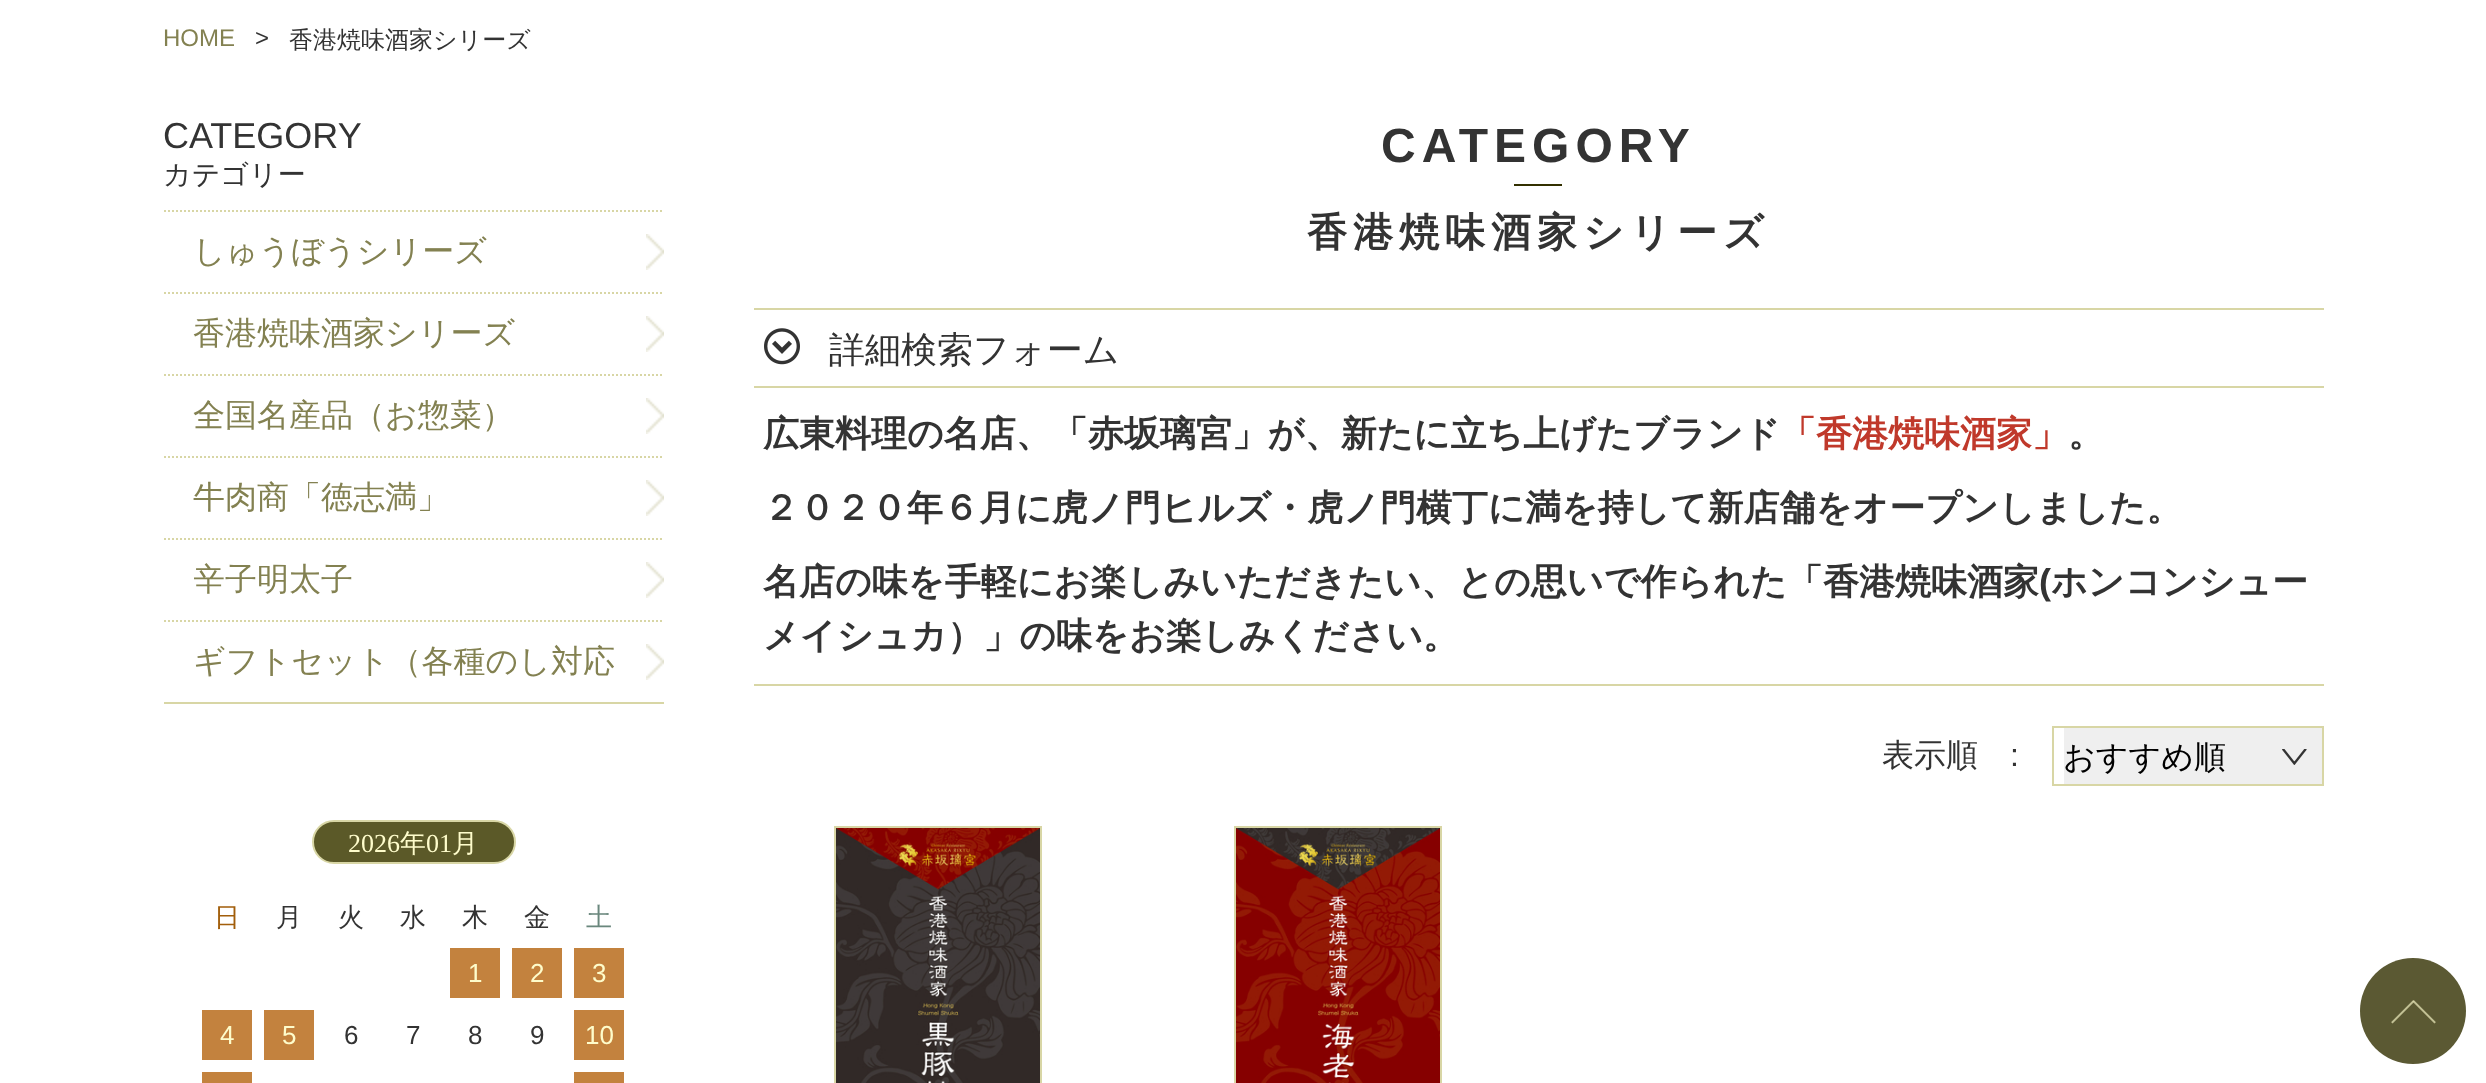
async function draw(canvas) {
	canvas.width = 2486;
	canvas.height = 1083;
	const c = canvas.getContext('2d');
	c.miterLimit = 4;
	c.fontKerning = 'normal';
	async function loadImage(src) {
		const img = new Image();
		img.src = src;
		await img.decode();
		return img;
	}

	c.fillStyle = '#fff';
	c.fillRect(0, 0, 2486, 1083);
	c.font = '24px Liberation Sans';
	c.fillStyle = '#838151';
	c.fillText('HOME', 163, 46);
	c.fillStyle = '#333';
	c.fillText('>', 255, 46);
	c.font = '500 24px WenQuanYi Zen Hei';
	c.fillText('香港焼味酒家シリーズ', 289, 48);
	c.fillStyle = '#d8d6a5';
	c.fillRect(164, 702, 500, 2);
	c.font = '36px Liberation Sans';
	c.fillStyle = '#333';
	c.fillText('CATEGORY', 163, 148);
	c.font = '500 28px WenQuanYi Zen Hei';
	c.fillText('カテゴリー', 163, 184);
	c.beginPath();
	c.moveTo(164, 211);
	c.lineTo(664, 211);
	c.strokeStyle = '#d8d6a5';
	c.lineWidth = 2;
	c.setLineDash([2, 2]);
	c.stroke();
	c.font = '500 32px WenQuanYi Zen Hei';
	c.fillStyle = '#838151';
	c.fillText('しゅうぼうシリーズ', 193, 262);
	c.drawImage(await loadImage('img1.png'), 646, 234, 18, 36);
	c.beginPath();
	c.moveTo(164, 293);
	c.lineTo(664, 293);
	c.stroke();
	c.fillText('香港焼味酒家シリーズ', 193, 344);
	c.drawImage(await loadImage('img1.png'), 646, 316, 18, 36);
	c.beginPath();
	c.moveTo(164, 375);
	c.lineTo(664, 375);
	c.stroke();
	c.fillText('全国名産品（お惣菜）', 193, 426);
	c.drawImage(await loadImage('img1.png'), 646, 398, 18, 36);
	c.beginPath();
	c.moveTo(164, 457);
	c.lineTo(664, 457);
	c.stroke();
	c.fillText('牛肉商「徳志満」', 193, 508);
	c.drawImage(await loadImage('img1.png'), 646, 480, 18, 36);
	c.beginPath();
	c.moveTo(164, 539);
	c.lineTo(664, 539);
	c.stroke();
	c.save();
	c.beginPath();
	c.rect(194, 540, 470, 80);
	c.clip();
	c.fillText('辛子明太子', 193, 590);
	c.restore();
	c.drawImage(await loadImage('img1.png'), 646, 562, 18, 36);
	c.beginPath();
	c.moveTo(164, 621);
	c.lineTo(664, 621);
	c.stroke();
	c.fillText('ギフトセット（各種のし対応', 193, 672);
	c.drawImage(await loadImage('img1.png'), 646, 644, 18, 36);
	c.fillStyle = '#5b5928';
	c.beginPath();
	c.roundRect(313, 821, 202, 42, 21);
	c.fill();
	c.setLineDash([]);
	c.stroke();
	c.font = '26px Liberation Serif';
	c.fillStyle = '#fefccb';
	c.fillText('2026', 348, 852);
	c.font = '500 26px WenQuanYi Zen Hei';
	c.fillText('年', 400, 852);
	c.font = '26px Liberation Serif';
	c.fillText('01', 426, 852);
	c.font = '500 26px WenQuanYi Zen Hei';
	c.fillText('月', 452, 852);
	c.fillStyle = '#a25e0b';
	c.fillText('日', 214, 926);
	c.fillStyle = '#333';
	for (const [text, x, y] of [
		['月', 276, 926],
		['火', 338, 926],
		['水', 400, 926],
		['木', 462, 926],
		['金', 524, 926],
	]) {
		c.fillText(text, x, y);
	}
	c.fillStyle = '#6a877d';
	c.fillText('土', 586, 926);
	c.fillStyle = '#c3823e';
	c.fillRect(450, 948, 50, 50);
	c.font = '26px Liberation Sans';
	c.fillStyle = '#fefccb';
	c.fillText('1', 468, 982);
	c.fillStyle = '#c3823e';
	c.fillRect(512, 948, 50, 50);
	c.fillStyle = '#fefccb';
	c.fillText('2', 530, 982);
	c.fillStyle = '#c3823e';
	c.fillRect(574, 948, 50, 50);
	c.fillStyle = '#fefccb';
	c.fillText('3', 592, 982);
	c.fillStyle = '#c3823e';
	c.fillRect(202, 1010, 50, 50);
	c.fillStyle = '#fefccb';
	c.fillText('4', 220, 1044);
	c.fillStyle = '#c3823e';
	c.fillRect(264, 1010, 50, 50);
	c.fillStyle = '#fefccb';
	c.fillText('5', 282, 1044);
	c.fillStyle = '#333';
	for (const [text, x, y] of [
		['6', 344, 1044],
		['7', 406, 1044],
		['8', 468, 1044],
		['9', 530, 1044],
	]) {
		c.fillText(text, x, y);
	}
	c.fillStyle = '#c3823e';
	c.fillRect(574, 1010, 50, 50);
	c.fillStyle = '#fefccb';
	c.fillText('10', 585, 1044);
	c.fillStyle = '#c3823e';
	c.fillRect(202, 1072, 50, 11);
	c.fillRect(574, 1072, 50, 11);
	c.letterSpacing = '6px';
	c.font = 'bold 48px Liberation Sans';
	c.fillStyle = '#333';
	c.fillText('CATEGORY', 1381, 162);
	c.fillStyle = '#323000';
	c.fillRect(1514, 184, 48, 2);
	c.font = 'bold 40px WenQuanYi Zen Hei';
	c.fillStyle = '#333';
	c.fillText('香港焼味酒家シリーズ', 1307, 246);
	c.fillStyle = '#d8d6a5';
	c.fillRect(754, 308, 1570, 2);
	c.fillRect(754, 386, 1570, 2);
	c.drawImage(await loadImage('img2.png'), 764, 328, 36, 37);
	c.letterSpacing = '0px';
	c.font = '500 36px WenQuanYi Zen Hei';
	c.fillStyle = '#333';
	c.fillText('詳細検索フォーム', 829, 362);
	c.font = 'bold 36px WenQuanYi Zen Hei';
	c.fillText('広東料理の名店、「赤坂璃宮」が、新たに立ち上げたブランド', 763, 446);
	c.fillStyle = '#c0392b';
	c.fillText('「香港焼味酒家」', 1780, 446);
	c.fillStyle = '#333';
	for (const [text, x, y] of [
		['。', 2068, 446],
		['２０２０年６月に虎ノ門ヒルズ・虎ノ門横丁に満を持して新店舗をオープンしました。', 763, 520],
		['名店の味を手軽にお楽しみいただきたい、との思いで作られた「香港焼味酒家', 763, 594],
	]) {
		c.fillText(text, x, y);
	}
	c.font = 'bold 36px Liberation Sans';
	c.fillText('(', 2039, 594);
	c.font = 'bold 36px WenQuanYi Zen Hei';
	c.fillText('ホンコンシュー', 2051, 594);
	c.fillText('メイシュカ）」の味をお楽しみください。', 763, 648);
	c.fillStyle = '#d8d6a5';
	c.fillRect(754, 684, 1570, 2);
	c.font = '500 32px WenQuanYi Zen Hei';
	c.fillStyle = '#333';
	c.fillText('表示順', 1882, 766);
	c.font = '32px Liberation Sans';
	c.fillText(':', 2010, 766);
	c.strokeRect(2053, 727, 270, 58);
	c.fillStyle = '#efefef';
	c.fillRect(2064, 728, 258, 56);
	c.font = '500 32px WenQuanYi Zen Hei';
	c.fillStyle = '#000';
	c.fillText('おすすめ順', 2063, 768);
	c.drawImage(await loadImage('img3.png'), 2282, 749, 25, 16);
	c.strokeRect(835, 827, 206, 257);
	c.drawImage(await loadImage('img4.png'), 836, 828, 204, 255);
	c.strokeRect(1235, 827, 206, 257);
	c.drawImage(await loadImage('img5.png'), 1236, 828, 204, 255);
	c.fillStyle = '#5b5933';
	c.beginPath();
	c.arc(2413, 1011, 53, 0, 2 * Math.PI);
	c.fill();
	c.drawImage(await loadImage('img6.png'), 2391, 1000, 45, 24);
}

draw(document.querySelector('canvas'));
